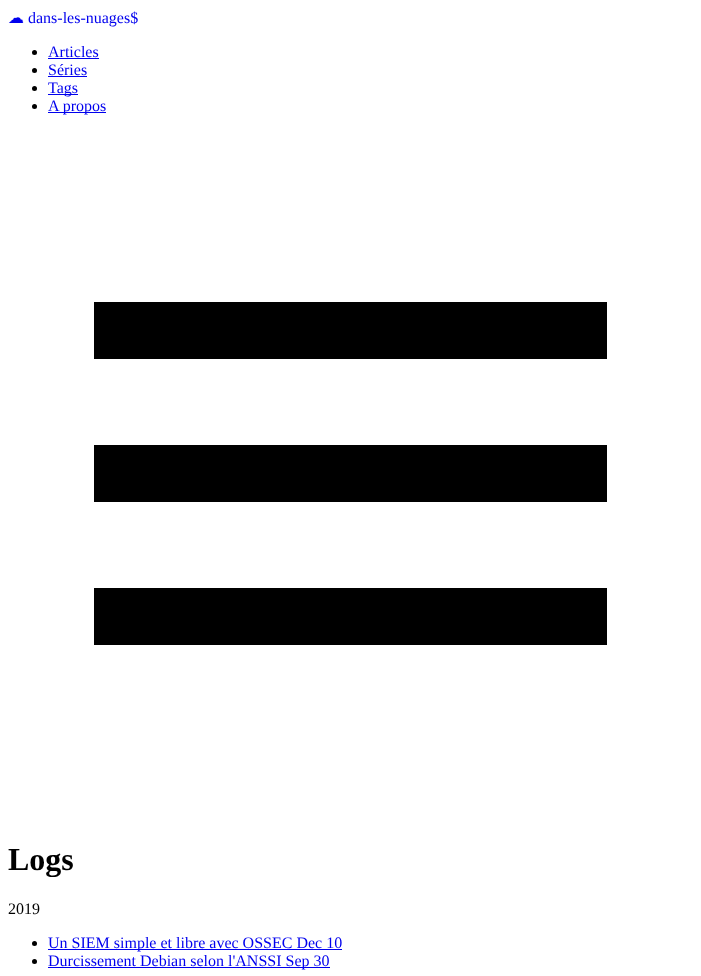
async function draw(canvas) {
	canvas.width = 701;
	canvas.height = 976;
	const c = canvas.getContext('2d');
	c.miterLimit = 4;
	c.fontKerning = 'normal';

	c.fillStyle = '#fff';
	c.fillRect(0, 0, 701, 976);
	c.font = '16px DejaVu Sans';
	c.fillStyle = '#00e';
	c.fillText('☁', 8, 23);
	c.font = '16px Liberation Serif';
	c.fillText('dans-les-nuages$', 28, 23);
	c.fillStyle = '#000';
	c.beginPath();
	c.arc(34.5, 52.5, 2.5, 0, 2 * Math.PI);
	c.fill();
	c.fillStyle = '#00e';
	c.fillText('Articles', 48, 57);
	c.fillRect(48, 58, 51, 1);
	c.fillStyle = '#000';
	c.beginPath();
	c.arc(34.5, 70.5, 2.5, 0, 2 * Math.PI);
	c.fill();
	c.fillStyle = '#00e';
	c.fillText('Séries', 48, 75);
	c.fillRect(48, 76, 39, 1);
	c.fillStyle = '#000';
	c.beginPath();
	c.arc(34.5, 88.5, 2.5, 0, 2 * Math.PI);
	c.fill();
	c.fillStyle = '#00e';
	c.fillRect(48, 94, 30, 1);
	c.fillText('Tags', 48, 93);
	c.fillStyle = '#000';
	c.beginPath();
	c.arc(34.5, 106.5, 2.5, 0, 2 * Math.PI);
	c.fill();
	c.fillStyle = '#00e';
	c.fillRect(48, 112, 58, 1);
	c.fillText('A propos', 48, 111);
	c.fillStyle = '#000';
	c.beginPath();
	c.moveTo(94, 645);
	c.lineTo(607, 645);
	c.lineTo(607, 588);
	c.lineTo(94, 588);
	c.closePath();
	c.moveTo(94, 502);
	c.lineTo(607, 502);
	c.lineTo(607, 445);
	c.lineTo(94, 445);
	c.closePath();
	c.moveTo(94, 302);
	c.lineTo(94, 359);
	c.lineTo(607, 359);
	c.lineTo(607, 302);
	c.closePath();
	c.fill();
	c.font = 'bold 32px Liberation Serif';
	c.fillText('Logs', 8, 870);
	c.font = '16px Liberation Serif';
	c.fillText('2019', 8, 914);
	c.beginPath();
	c.arc(34.5, 943.5, 2.5, 0, 2 * Math.PI);
	c.fill();
	c.fillStyle = '#00e';
	c.fillRect(48, 949, 294, 1);
	c.fillText('Un SIEM simple et libre avec OSSEC Dec 10', 48, 948);
	c.fillStyle = '#000';
	c.beginPath();
	c.arc(34.5, 961.5, 2.5, 0, 2 * Math.PI);
	c.fill();
	c.fillStyle = '#00e';
	c.fillRect(48, 967, 282, 1);
	c.fillText('Durcissement Debian selon l\'ANSSI Sep 30', 48, 966);
}

draw(document.querySelector('canvas'));
